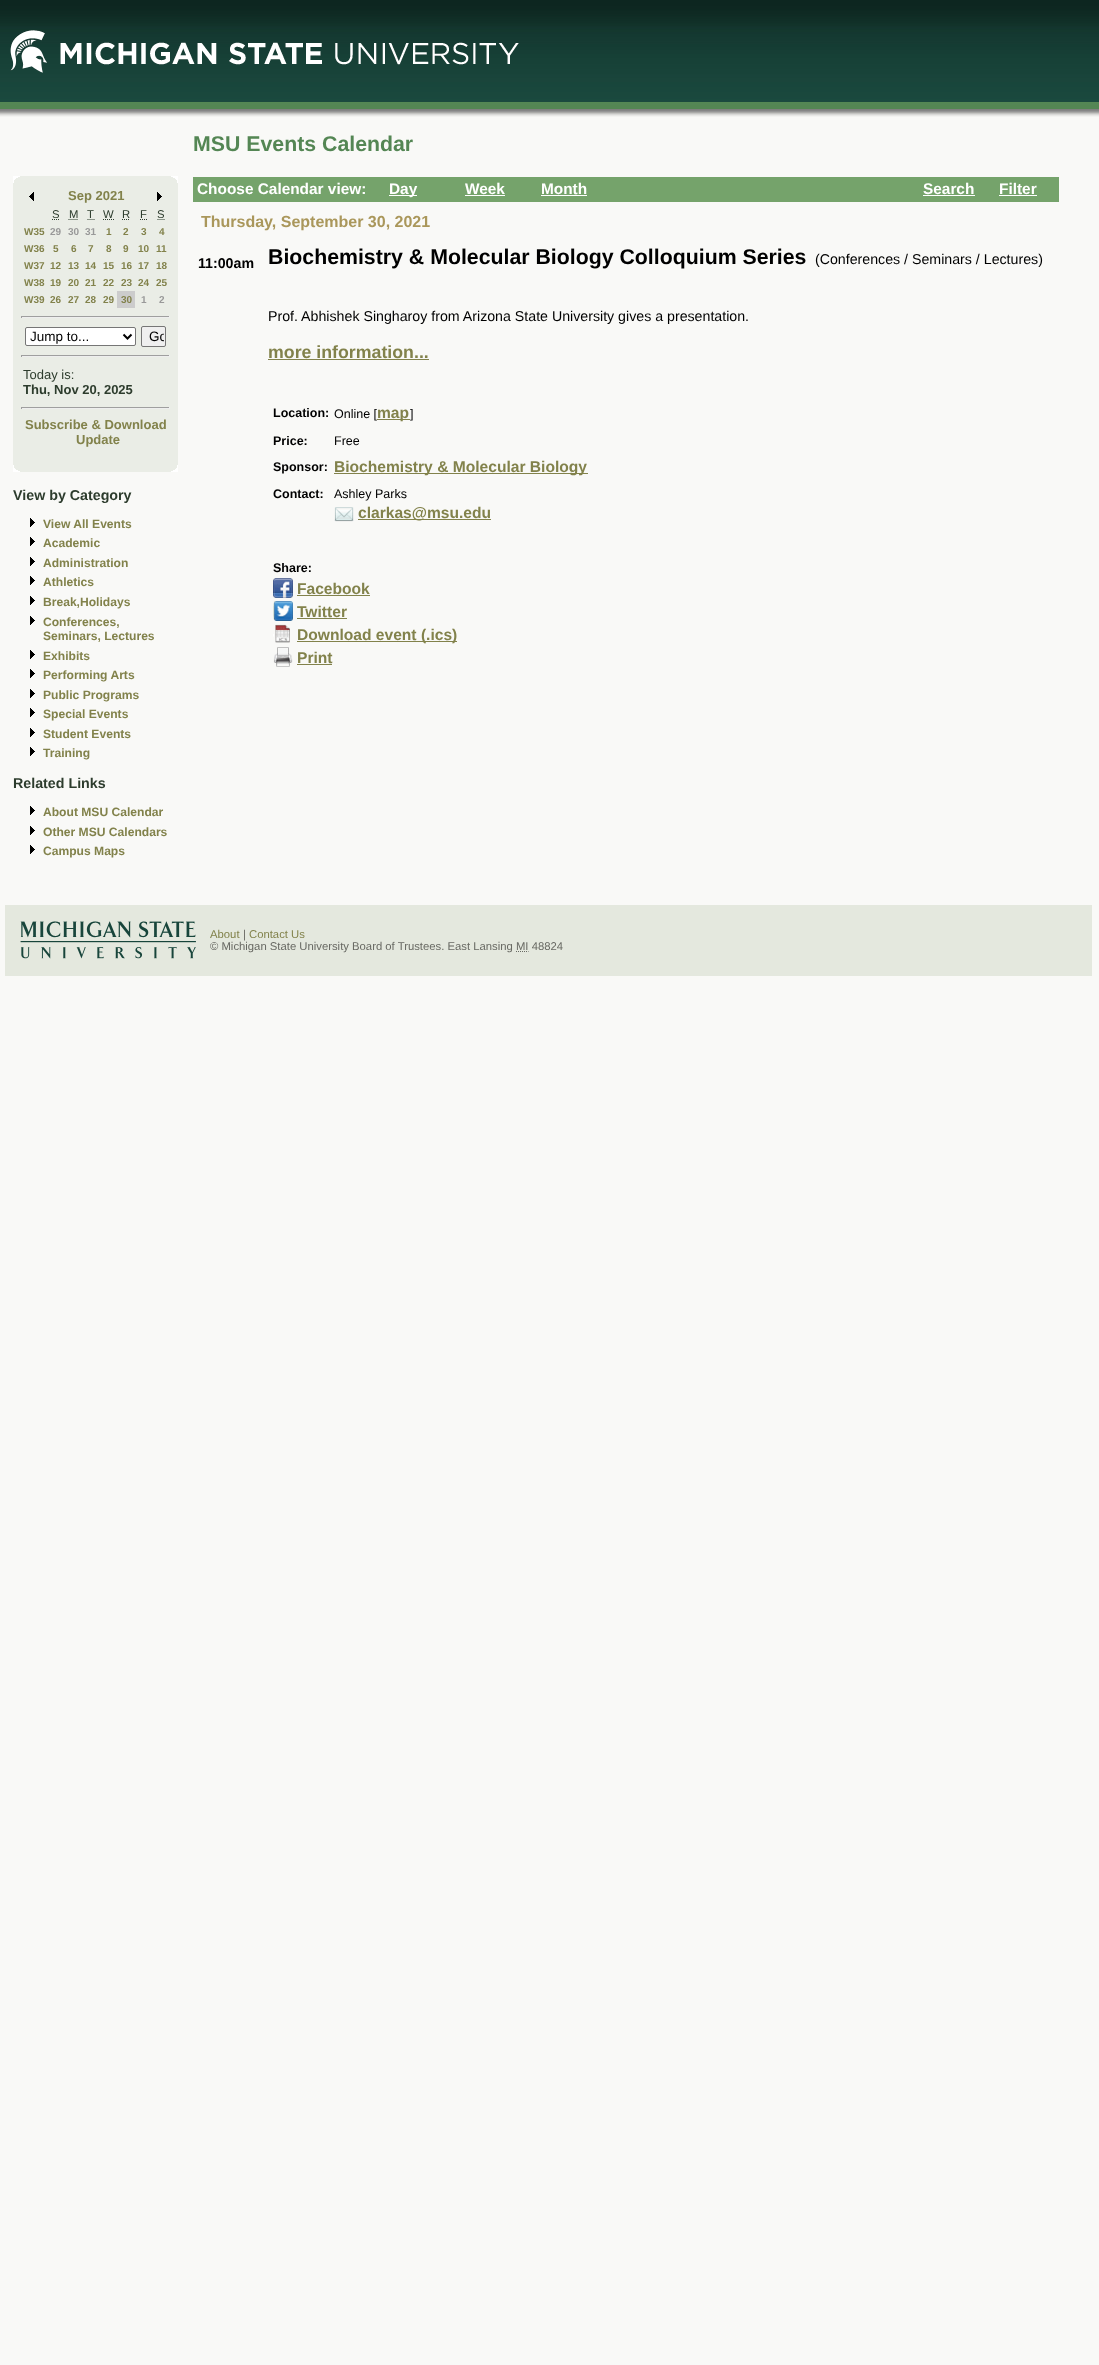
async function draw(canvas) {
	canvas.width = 1099;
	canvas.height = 2365;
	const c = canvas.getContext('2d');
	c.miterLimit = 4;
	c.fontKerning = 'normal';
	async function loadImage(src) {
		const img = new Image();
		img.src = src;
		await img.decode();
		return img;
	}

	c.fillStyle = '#f9f9f7';
	c.fillRect(0, 0, 1099, 2365);
	c.drawImage(await loadImage('img1.png'), 0, 0, 1099, 117);
	c.drawImage(await loadImage('img2.png'), 10, 30, 509, 43);
	c.fillStyle = '#eaede6';
	c.fillRect(13, 176, 8, 296);
	c.drawImage(await loadImage('img3.png'), 13, 176, 7, 7);
	c.fillRect(21, 176, 149, 296);
	c.fillRect(170, 176, 8, 296);
	c.drawImage(await loadImage('img4.png'), 171, 176, 7, 7);
	c.drawImage(await loadImage('img5.png'), 29, 192, 5, 9);
	c.font = 'bold 13px Liberation Sans';
	c.fillStyle = '#82824b';
	c.fillText('Sep 2021', 68, 200);
	c.drawImage(await loadImage('img6.png'), 157, 192, 5, 9);
	c.font = '11.3px Liberation Sans';
	c.fillStyle = '#2d3c2d';
	c.fillText('S', 52, 218);
	c.beginPath();
	c.moveTo(52, 219.5);
	c.lineTo(59.5, 219.5);
	c.strokeStyle = '#2d3c2d';
	c.setLineDash([1, 1]);
	c.stroke();
	c.fillText('M', 69, 218);
	c.beginPath();
	c.moveTo(68.5, 219.5);
	c.lineTo(78, 219.5);
	c.stroke();
	c.fillText('T', 87, 218);
	c.beginPath();
	c.moveTo(87.5, 219.5);
	c.lineTo(88.5, 219.5);
	c.moveTo(89.5, 219.5);
	c.lineTo(90.5, 219.5);
	c.moveTo(91.5, 219.5);
	c.lineTo(92.5, 219.5);
	c.moveTo(93.5, 219.5);
	c.lineTo(94.5, 219.5);
	c.setLineDash([]);
	c.stroke();
	c.fillText('W', 103, 218);
	c.beginPath();
	c.moveTo(103, 219.5);
	c.lineTo(114, 219.5);
	c.setLineDash([1, 1]);
	c.stroke();
	c.fillText('R', 122, 218);
	c.beginPath();
	c.moveTo(122, 219.5);
	c.lineTo(130, 219.5);
	c.stroke();
	c.fillText('F', 140, 218);
	c.beginPath();
	c.moveTo(140, 219.5);
	c.lineTo(141, 219.5);
	c.moveTo(142, 219.5);
	c.lineTo(143, 219.5);
	c.moveTo(144, 219.5);
	c.lineTo(145, 219.5);
	c.moveTo(146, 219.5);
	c.lineTo(147, 219.5);
	c.setLineDash([]);
	c.stroke();
	c.fillText('S', 157, 218);
	c.beginPath();
	c.moveTo(157.5, 219.5);
	c.lineTo(165, 219.5);
	c.setLineDash([1, 1]);
	c.stroke();
	c.font = 'bold 10px Liberation Sans';
	c.fillStyle = '#82824b';
	c.fillText('W35', 24, 235);
	c.fillStyle = '#999';
	for (const [text, x, y] of [
		['29', 50, 235],
		['30', 68, 235],
		['31', 85, 235],
	]) {
		c.fillText(text, x, y);
	}
	c.fillStyle = '#82824b';
	for (const [text, x, y] of [
		['1', 106, 235],
		['2', 123, 235],
		['3', 141, 235],
		['4', 159, 235],
		['W36', 24, 252],
		['5', 53, 252],
		['6', 71, 252],
		['7', 88, 252],
		['8', 106, 252],
		['9', 123, 252],
		['10', 138, 252],
		['11', 156, 252],
		['W37', 24, 269],
		['12', 50, 269],
		['13', 68, 269],
		['14', 85, 269],
		['15', 103, 269],
		['16', 121, 269],
		['17', 138, 269],
		['18', 156, 269],
		['W38', 24, 286],
		['19', 50, 286],
		['20', 68, 286],
		['21', 85, 286],
		['22', 103, 286],
		['23', 121, 286],
		['24', 138, 286],
		['25', 156, 286],
		['W39', 24, 303],
		['26', 50, 303],
		['27', 68, 303],
		['28', 85, 303],
		['29', 103, 303],
	]) {
		c.fillText(text, x, y);
	}
	c.fillStyle = '#ccc';
	c.fillRect(117, 291, 18, 17);
	c.fillStyle = '#82824b';
	c.fillText('30', 121, 303);
	c.fillStyle = '#999';
	c.fillText('1', 141, 303);
	c.fillText('2', 159, 303);
	for (const [x, y, w, h, color] of [
		[21, 316, 149, 1, '#9f9f9f'],
		[169, 316, 1, 2, '#eee'],
		[21, 317, 149, 1, '#eee'],
		[21, 316, 1, 2, '#9f9f9f'],
	]) {
		c.fillStyle = color;
		c.fillRect(x, y, w, h);
	}
	c.fillStyle = '#fff';
	c.beginPath();
	c.roundRect(25.5, 327.5, 110, 18, 1.5);
	c.fill();
	c.strokeStyle = '#767676';
	c.setLineDash([]);
	c.stroke();
	c.beginPath();
	c.moveTo(123.5, 334.5);
	c.lineTo(127.5, 338.5);
	c.lineTo(131.5, 334.5);
	c.strokeStyle = '#000';
	c.lineWidth = 2;
	c.stroke();
	c.font = '13.5px Liberation Sans';
	c.fillStyle = '#000';
	c.fillText('Jump to...', 30, 341);
	c.fillStyle = '#efefef';
	c.beginPath();
	c.roundRect(141.5, 326.5, 24, 20, 1.5);
	c.fill();
	c.strokeStyle = '#767676';
	c.lineWidth = 1;
	c.stroke();
	c.save();
	c.beginPath();
	c.rect(143, 328, 21, 17);
	c.clip();
	c.fillStyle = '#000';
	c.fillText('Go', 149, 341);
	c.restore();
	for (const [x, y, w, h, color] of [
		[21, 355, 149, 1, '#9f9f9f'],
		[169, 355, 1, 2, '#eee'],
		[21, 356, 149, 1, '#eee'],
		[21, 355, 1, 2, '#9f9f9f'],
	]) {
		c.fillStyle = color;
		c.fillRect(x, y, w, h);
	}
	c.font = '13px Liberation Sans';
	c.fillStyle = '#2d3c2d';
	c.fillText('Today is:', 23, 379);
	c.font = 'bold 13px Liberation Sans';
	c.fillText('Thu, Nov 20, 2025', 23, 394);
	for (const [x, y, w, h, color] of [
		[21, 407, 149, 1, '#9f9f9f'],
		[169, 407, 1, 2, '#eee'],
		[21, 408, 149, 1, '#eee'],
		[21, 407, 1, 2, '#9f9f9f'],
	]) {
		c.fillStyle = color;
		c.fillRect(x, y, w, h);
	}
	c.fillStyle = '#82824b';
	c.fillText('Subscribe & Download', 25, 429);
	c.fillText('Update', 76, 444);
	c.drawImage(await loadImage('img7.png'), 13, 465, 7, 7);
	c.drawImage(await loadImage('img8.png'), 171, 465, 7, 7);
	c.font = 'bold 14.25px Liberation Sans';
	c.fillStyle = '#2d3c2d';
	c.fillText('View by Category', 13, 500);
	c.drawImage(await loadImage('img9.png'), 30, 518, 5, 9);
	c.font = 'bold 12.1px Liberation Sans';
	c.fillStyle = '#82824b';
	c.fillText('View All Events', 43, 528);
	c.drawImage(await loadImage('img9.png'), 30, 537, 5, 9);
	c.fillText('Academic', 43, 547);
	c.drawImage(await loadImage('img9.png'), 30, 557, 5, 9);
	c.fillText('Administration', 43, 567);
	c.drawImage(await loadImage('img9.png'), 30, 576, 5, 9);
	c.fillText('Athletics', 43, 586);
	c.drawImage(await loadImage('img9.png'), 30, 596, 5, 9);
	c.fillText('Break,Holidays', 43, 606);
	c.drawImage(await loadImage('img9.png'), 30, 616, 5, 9);
	c.fillText('Conferences,', 43, 626);
	c.fillText('Seminars, Lectures', 43, 640);
	c.drawImage(await loadImage('img9.png'), 30, 650, 5, 9);
	c.fillText('Exhibits', 43, 660);
	c.drawImage(await loadImage('img9.png'), 30, 669, 5, 9);
	c.fillText('Performing Arts', 43, 679);
	c.drawImage(await loadImage('img9.png'), 30, 689, 5, 9);
	c.fillText('Public Programs', 43, 699);
	c.drawImage(await loadImage('img9.png'), 30, 708, 5, 9);
	c.fillText('Special Events', 43, 718);
	c.drawImage(await loadImage('img9.png'), 30, 728, 5, 9);
	c.fillText('Student Events', 43, 738);
	c.drawImage(await loadImage('img9.png'), 30, 747, 5, 9);
	c.fillText('Training', 43, 757);
	c.font = 'bold 14.25px Liberation Sans';
	c.fillStyle = '#2d3c2d';
	c.fillText('Related Links', 13, 788);
	c.drawImage(await loadImage('img9.png'), 30, 806, 5, 9);
	c.font = 'bold 12.1px Liberation Sans';
	c.fillStyle = '#82824b';
	c.fillText('About MSU Calendar', 43, 816);
	c.drawImage(await loadImage('img9.png'), 30, 826, 5, 9);
	c.fillText('Other MSU Calendars', 43, 836);
	c.drawImage(await loadImage('img9.png'), 30, 845, 5, 9);
	c.fillText('Campus Maps', 43, 855);
	c.font = 'bold 21.3px Liberation Sans';
	c.fillStyle = '#548654';
	c.fillText('MSU Events Calendar', 193, 151);
	c.fillStyle = '#75a36b';
	c.fillRect(193, 177, 866, 25);
	c.font = 'bold 15.4px Liberation Sans';
	c.fillStyle = '#fff';
	c.fillText('Choose Calendar view:', 197, 194);
	c.fillRect(389, 195, 28, 1);
	c.fillText('Day', 389, 194);
	c.fillText('Week', 465, 194);
	c.fillRect(465, 195, 40, 1);
	c.fillText('Month', 541, 194);
	c.fillRect(541, 195, 46, 1);
	c.fillText('Search', 923, 194);
	c.fillRect(923, 195, 52, 1);
	c.fillText('Filter', 999, 194);
	c.fillRect(999, 195, 38, 1);
	c.font = 'bold 16px Liberation Sans';
	c.fillStyle = '#aa975b';
	c.fillText('Thursday, September 30, 2021', 201, 227);
	c.font = 'bold 14.2px Liberation Sans';
	c.fillStyle = '#000';
	c.fillText('11:00am', 198, 268);
	c.font = 'bold 21.3px Liberation Sans';
	c.fillText('Biochemistry & Molecular Biology Colloquium Series', 268, 264);
	c.font = '14.2px Liberation Sans';
	c.fillText('(Conferences / Seminars / Lectures)', 815, 264);
	c.fillText('Prof. Abhishek Singharoy from Arizona State University gives a presentation.', 268, 321);
	c.font = 'bold 17.75px Liberation Sans';
	c.fillStyle = '#82824b';
	c.fillText('more information...', 268, 358);
	c.fillRect(268, 359, 161, 1);
	c.font = 'bold 12.5px Liberation Sans';
	c.fillStyle = '#000';
	c.fillText('Location:', 273, 417);
	c.font = '12.5px Liberation Sans';
	c.fillText('Online [', 334, 418);
	c.fillStyle = '#82824b';
	c.fillRect(377, 419, 33, 1);
	c.font = 'bold 15.6px Liberation Sans';
	c.fillText('map', 377, 418);
	c.font = '12.5px Liberation Sans';
	c.fillStyle = '#000';
	c.fillText(']', 410, 418);
	c.font = 'bold 12.5px Liberation Sans';
	c.fillText('Price:', 273, 445);
	c.font = '12.5px Liberation Sans';
	c.fillText('Free', 334, 445);
	c.font = 'bold 12.5px Liberation Sans';
	c.fillText('Sponsor:', 273, 471);
	c.fillStyle = '#82824b';
	c.fillRect(334, 473, 254, 1);
	c.font = 'bold 15.6px Liberation Sans';
	c.fillText('Biochemistry & Molecular Biology', 334, 472);
	c.font = 'bold 12.5px Liberation Sans';
	c.fillStyle = '#000';
	c.fillText('Contact:', 273, 498);
	c.font = '12.5px Liberation Sans';
	c.fillText('Ashley Parks', 334, 498);
	c.drawImage(await loadImage('img10.png'), 334, 507, 20, 15);
	c.fillStyle = '#82824b';
	c.fillRect(358, 519, 133, 1);
	c.font = 'bold 15.6px Liberation Sans';
	c.fillText('clarkas@msu.edu', 358, 518);
	c.font = 'bold 12.5px Liberation Sans';
	c.fillStyle = '#000';
	c.fillText('Share:', 273, 572);
	c.drawImage(await loadImage('img11.png'), 273, 578, 20, 20);
	c.font = 'bold 15.6px Liberation Sans';
	c.fillStyle = '#82824b';
	c.fillText('Facebook', 297, 594);
	c.fillRect(297, 595, 73, 1);
	c.drawImage(await loadImage('img12.png'), 273, 601, 20, 20);
	c.fillText('Twitter', 297, 617);
	c.fillRect(297, 618, 50, 1);
	c.drawImage(await loadImage('img13.png'), 273, 624, 17, 19);
	c.fillRect(297, 641, 160, 1);
	c.fillText('Download event (.ics)', 297, 640);
	c.drawImage(await loadImage('img14.png'), 273, 647, 20, 20);
	c.fillText('Print', 297, 663);
	c.fillRect(297, 664, 35, 1);
	c.fillStyle = '#e4e8de';
	c.fillRect(5, 905, 1087, 71);
	c.drawImage(await loadImage('img15.png'), 20, 921, 176, 38);
	c.font = '11.3px Liberation Sans';
	c.fillStyle = '#82824b';
	c.fillText('About', 210, 938);
	c.fillStyle = '#686963';
	c.fillText('|', 243, 938);
	c.fillStyle = '#82824b';
	c.fillText('Contact Us', 249, 938);
	c.fillStyle = '#686963';
	c.fillText('© Michigan State University Board of Trustees. East Lansing MI 48824', 210, 950);
	c.beginPath();
	c.moveTo(516, 951.5);
	c.lineTo(528.5, 951.5);
	c.strokeStyle = '#686963';
	c.setLineDash([1, 1]);
	c.stroke();
}

draw(document.querySelector('canvas'));
